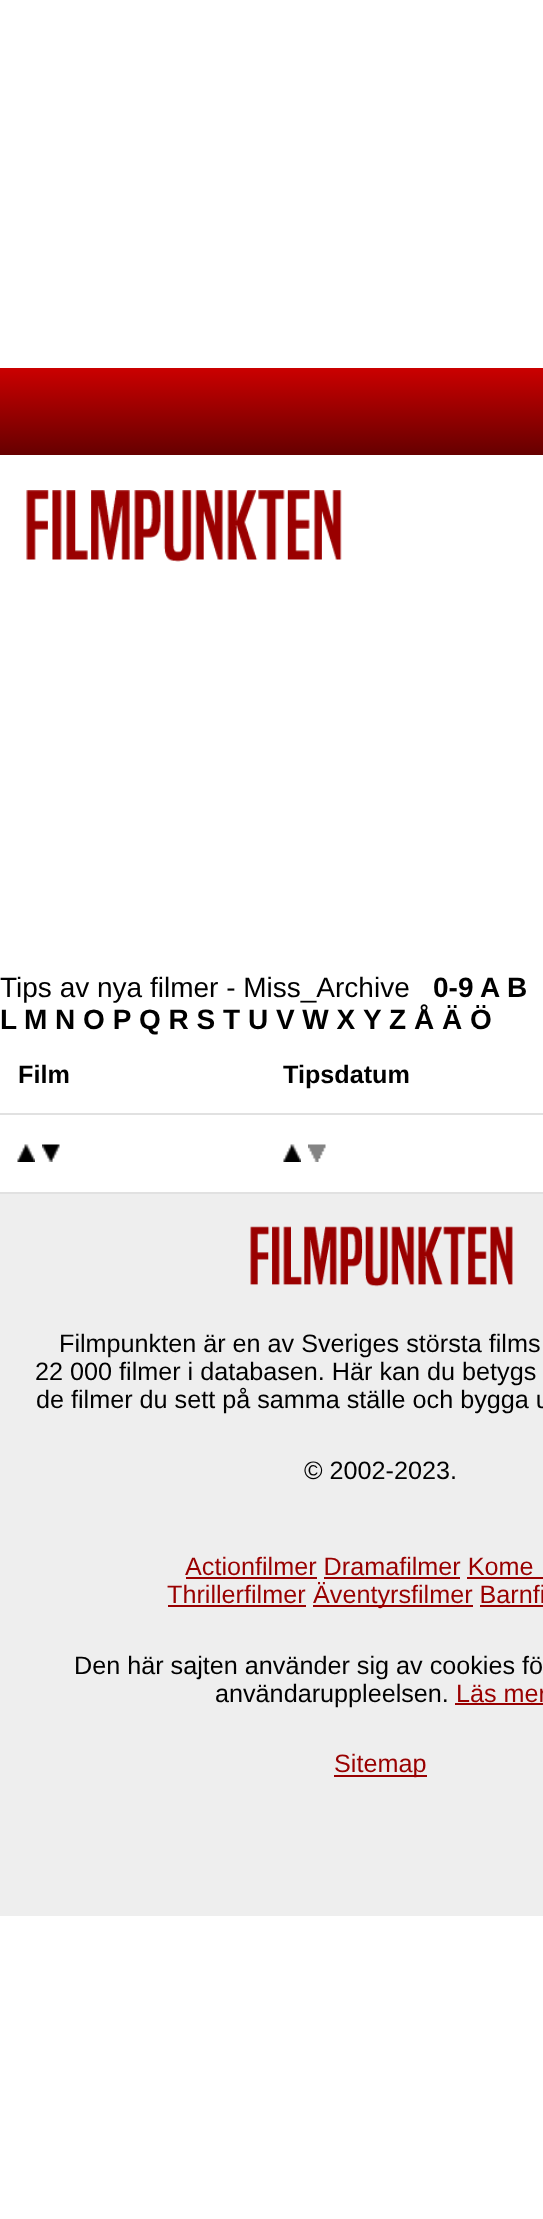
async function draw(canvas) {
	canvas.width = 543;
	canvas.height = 2219;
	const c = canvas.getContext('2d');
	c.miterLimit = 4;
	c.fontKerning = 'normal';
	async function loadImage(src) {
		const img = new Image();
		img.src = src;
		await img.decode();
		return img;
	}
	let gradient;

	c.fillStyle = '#fff';
	c.fillRect(0, 0, 543, 2219);
	gradient = c.createLinearGradient(381, 367, 381, 455);
	gradient.addColorStop(0, '#c00');
	gradient.addColorStop(1, '#600');
	c.fillStyle = gradient;
	c.fillRect(0, 368, 543, 87);
	c.drawImage(await loadImage('img1.png'), 26, 490, 316, 72);
	c.font = '28px Liberation Sans';
	c.fillStyle = '#000';
	c.fillText('Tips av nya filmer - Miss_Archive', 0, 997);
	c.font = 'bold 28px Liberation Sans';
	for (const [text, x, y] of [
		['0-9', 433, 997],
		['A', 480, 997],
		['B', 507, 997],
		['L', 0, 1029],
		['M N O P', 24, 1029],
		['Q R S T U V W X', 139, 1029],
		['Y', 363, 1029],
		['Z Å Ä Ö', 389, 1029],
	]) {
		c.fillText(text, x, y);
	}
	c.fillStyle = '#e1e1e1';
	c.fillRect(0, 1113, 543, 2);
	c.font = 'bold 25.2px Liberation Sans';
	c.fillStyle = '#000';
	c.fillText('Film', 18, 1083);
	c.fillText('Tipsdatum', 283, 1083);
	c.fillStyle = '#e1e1e1';
	c.fillRect(0, 1192, 543, 2);
	c.drawImage(await loadImage('img2.png'), 17, 1144, 18, 18);
	c.drawImage(await loadImage('img3.png'), 42, 1144, 18, 18);
	c.drawImage(await loadImage('img4.png'), 283, 1144, 18, 18);
	c.drawImage(await loadImage('img5.png'), 308, 1144, 18, 18);
	c.fillStyle = '#eee';
	c.fillRect(0, 1194, 543, 722);
	c.drawImage(await loadImage('img6.png'), 250, 1226, 263, 61);
	c.font = '25.2px Liberation Sans';
	c.fillStyle = '#000';
	for (const [text, x, y] of [
		['Filmpunkten är en av Sveriges största films', 59, 1352],
		['22 000 filmer i databasen. Här kan du betygs', 35, 1380],
		['de filmer du sett på samma ställe och bygga u', 36, 1408],
		['© 2002-2023.', 304, 1479],
	]) {
		c.fillText(text, x, y);
	}
	c.fillStyle = '#900';
	c.fillText('Actionfilmer Dramafilmer Kome', 185, 1575);
	for (const [x, y, w, h, color] of [
		[186, 1577, 131, 2, '#900'],
		[324, 1577, 136, 2, '#900'],
		[467, 1577, 76, 2, '#900'],
	]) {
		c.fillStyle = color;
		c.fillRect(x, y, w, h);
	}
	c.fillText('Thrillerfilmer', 167, 1603);
	c.fillRect(168, 1605, 138, 2);
	c.fillRect(313, 1605, 160, 2);
	c.fillText('Äventyrsfilmer Barnfi', 313, 1603);
	c.fillRect(480, 1605, 63, 2);
	c.fillStyle = '#000';
	c.fillText('Den här sajten använder sig av cookies fö', 74, 1674);
	c.fillText('användaruppleelsen.', 215, 1702);
	c.fillStyle = '#900';
	c.fillText('Läs mer', 456, 1702);
	c.fillRect(455, 1703, 88, 2);
	c.fillRect(334, 1775, 93, 2);
	c.fillText('Sitemap', 334, 1772);
}

draw(document.querySelector('canvas'));
